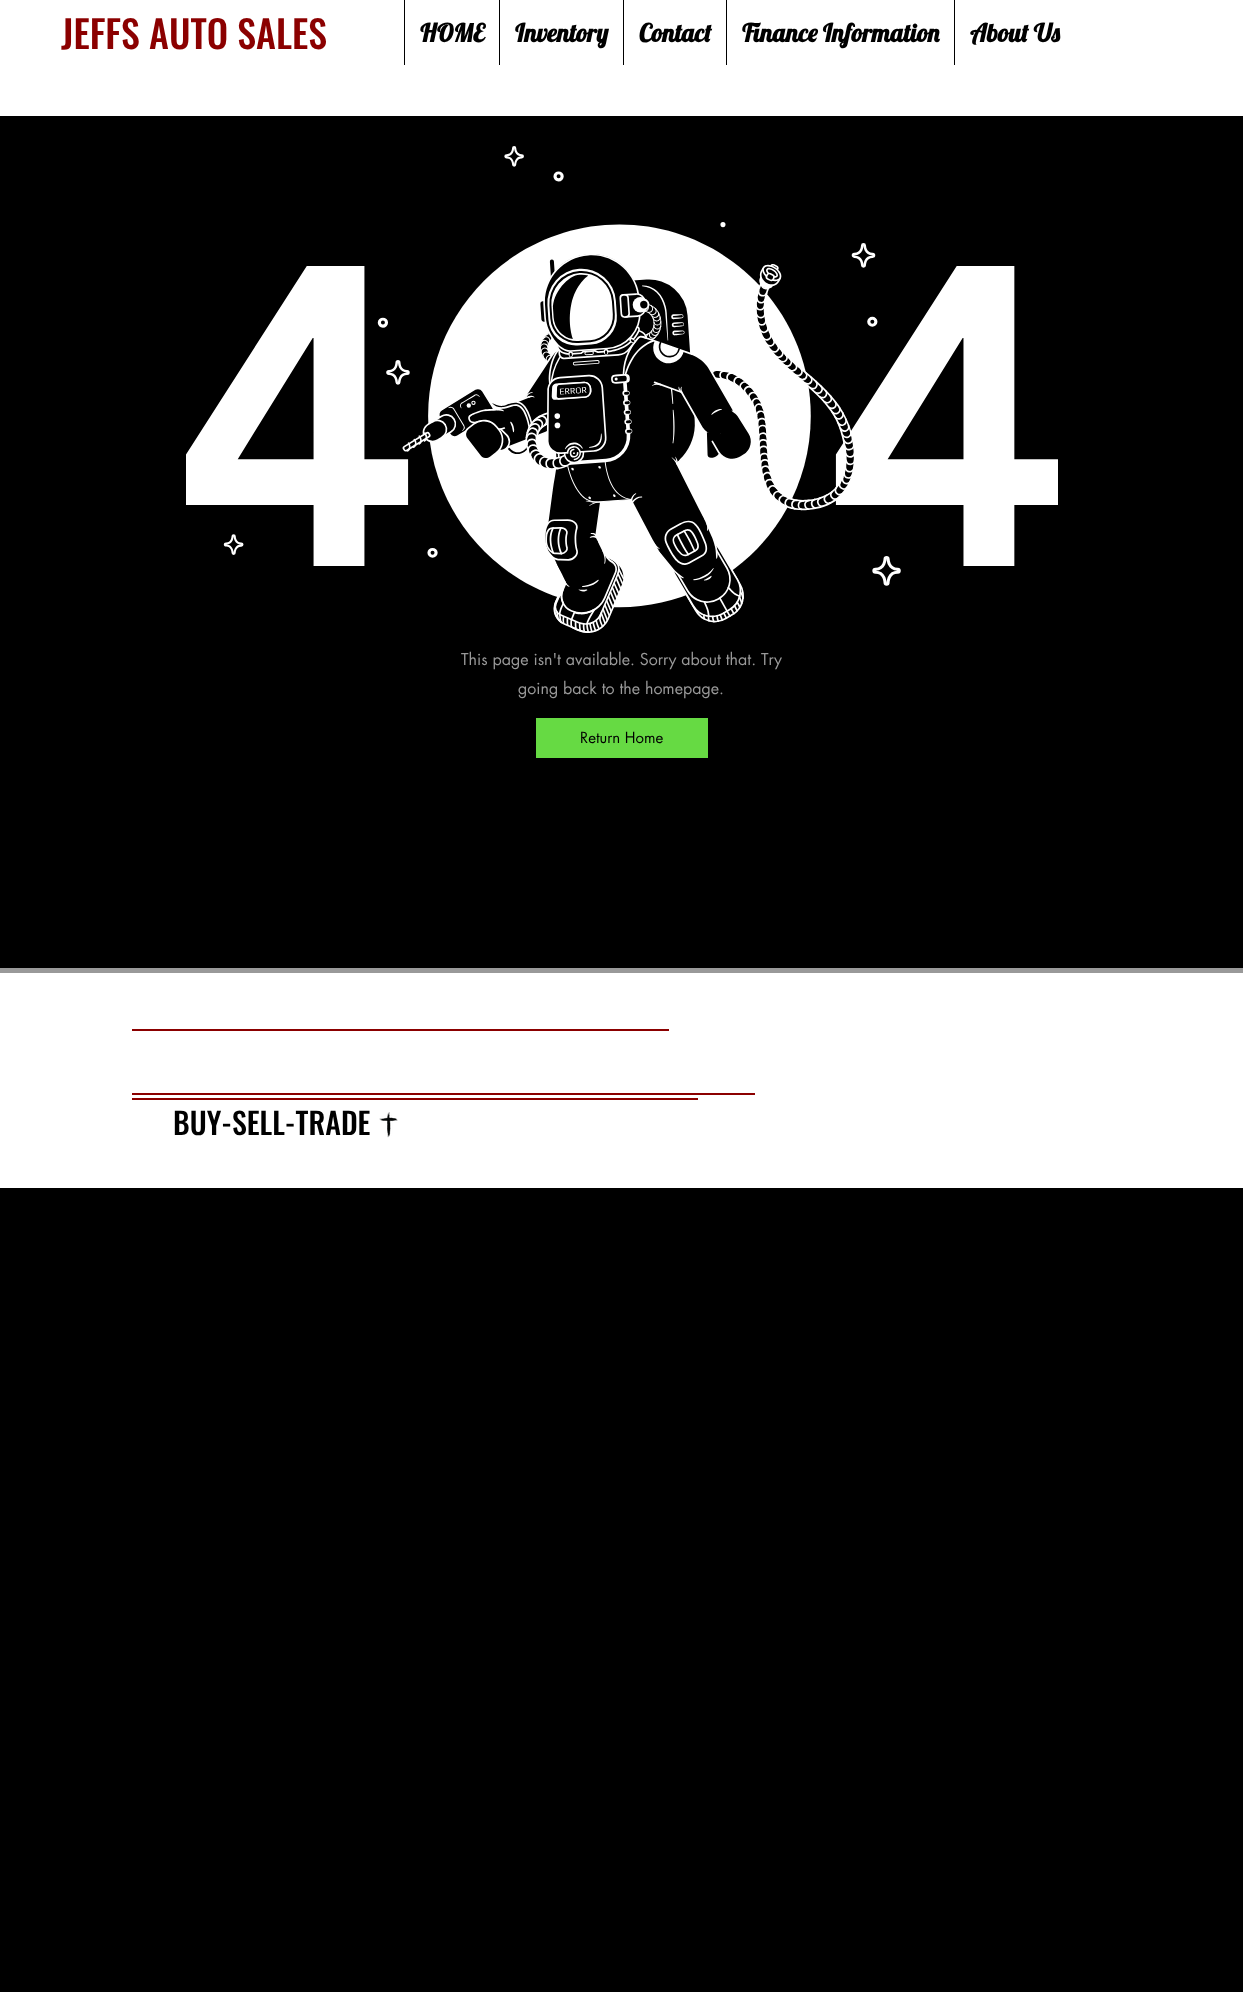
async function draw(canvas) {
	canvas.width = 1243;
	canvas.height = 1992;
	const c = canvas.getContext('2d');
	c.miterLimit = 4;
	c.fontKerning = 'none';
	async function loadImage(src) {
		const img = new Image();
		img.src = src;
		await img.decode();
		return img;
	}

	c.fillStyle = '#000';
	c.fillRect(0, 0, 1243, 1992);
	c.fillStyle = '#fff';
	c.fillRect(0, 0, 1243, 116);
	c.font = '500 38px Oswald';
	c.fillStyle = '#8b0000';
	c.fillText('JEFFS AUTO SALES', 61, 49);
	c.fillStyle = '#000';
	c.fillRect(404, 0, 1, 65);
	c.font = 'bold 25px Lobster';
	c.fillText('HOME', 420, 42);
	c.fillRect(499, 0, 1, 65);
	c.fillText('Inventory', 515, 42);
	c.fillRect(623, 0, 1, 65);
	c.fillText('Contact', 639, 42);
	c.fillRect(726, 0, 1, 65);
	c.fillText('Finance Information', 742, 42);
	c.fillRect(954, 0, 1, 65);
	c.fillText('About Us', 970, 42);
	c.drawImage(await loadImage('img1.png'), 186, 146, 872, 487);
	c.font = '16px futura';
	c.fillStyle = '#999';
	c.fillText('This page isn\'t available. Sorry about that. Try', 461, 665);
	c.fillText('going back to the homepage.', 518, 694);
	c.fillStyle = '#66da43';
	c.fillRect(536, 718, 172, 40);
	c.font = '15px futura';
	c.fillStyle = '#000';
	c.fillText('Return Home', 580, 743);
	for (const [x, y, w, h, color] of [
		[0, 973, 1243, 215, '#fff'],
		[0, 968, 1243, 5, '#999'],
		[132, 1029, 537, 2, '#8b0000'],
		[132, 1093, 623, 2, '#8b0000'],
		[132, 1098, 566, 2, '#8b0000'],
	]) {
		c.fillStyle = color;
		c.fillRect(x, y, w, h);
	}
	c.font = '500 30px Oswald';
	c.fillStyle = '#000';
	c.fillText('BUY-SELL-TRADE', 173, 1135);
	c.drawImage(await loadImage('img2.png'), 379, 1112, 19, 26);
}

draw(document.querySelector('canvas'));
